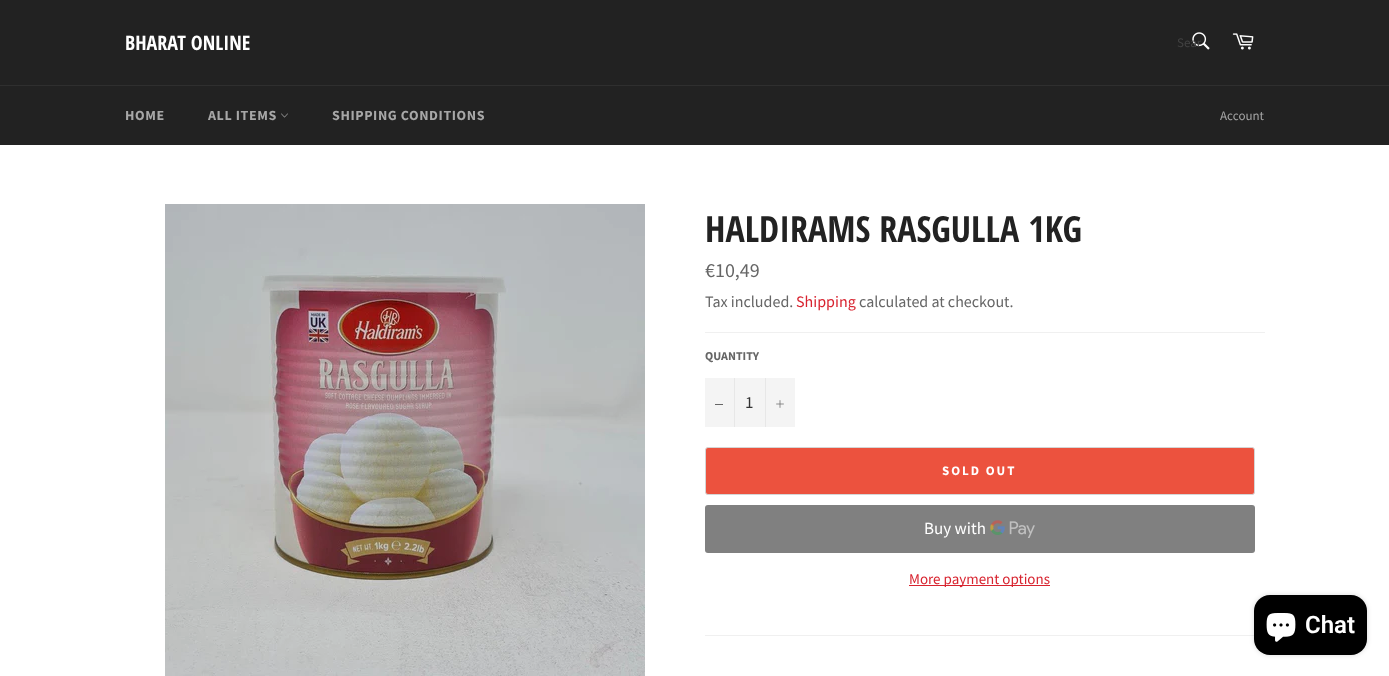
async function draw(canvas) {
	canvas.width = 1389;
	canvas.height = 676;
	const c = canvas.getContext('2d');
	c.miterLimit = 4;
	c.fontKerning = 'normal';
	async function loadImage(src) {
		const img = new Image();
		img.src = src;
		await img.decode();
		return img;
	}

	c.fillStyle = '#222';
	c.fillRect(0, 0, 1389, 676);
	c.font = 'bold 20px Open Sans Condensed';
	c.fillStyle = '#fff';
	c.fillText('BHARAT ONLINE', 125, 50);
	c.drawImage(await loadImage('img1.png'), 1192, 32, 18, 18);
	c.font = '13px Source Sans Pro';
	c.fillStyle = '#424242';
	c.fillText('Sear', 1177, 47);
	c.drawImage(await loadImage('img2.png'), 1232, 33, 22, 17);
	c.fillStyle = '#2f2f2f';
	c.fillRect(0, 85, 1389, 1);
	c.letterSpacing = '0.6px';
	c.font = 'bold 14px Source Sans Pro';
	c.fillStyle = '#a7a7a7';
	c.fillText('HOME', 125, 120);
	c.fillText('ALL ITEMS', 208, 120);
	c.drawImage(await loadImage('img3.png'), 281, 113, 7, 5);
	c.fillText('SHIPPING CONDITIONS', 332, 120);
	c.letterSpacing = '0px';
	c.font = '13px Source Sans Pro';
	c.fillText('Account', 1220, 120);
	c.fillStyle = '#fff';
	c.fillRect(0, 145, 1389, 531);
	c.drawImage(await loadImage('img4.png'), 165, 204, 480, 472);
	c.font = 'bold 36px Open Sans Condensed';
	c.fillStyle = '#222';
	c.fillText('HALDIRAMS RASGULLA 1KG', 705, 242);
	c.font = '20px Source Sans Pro';
	c.fillStyle = '#666';
	c.fillText('€10,49', 705, 277);
	c.font = '16px Source Sans Pro';
	c.fillText('Tax included.', 705, 307);
	c.fillStyle = '#d8232f';
	c.fillText('Shipping', 796, 307);
	c.fillStyle = '#666';
	c.fillText('calculated at checkout.', 859, 307);
	c.fillStyle = '#f0f0f0';
	c.fillRect(705, 332, 560, 1);
	c.font = 'bold 12px Source Sans Pro';
	c.fillStyle = '#666';
	c.fillText('QUANTITY', 705, 360);
	for (const [x, y, w, h, color] of [
		[705, 378, 90, 49, '#f4f4f4'],
		[734, 378, 1, 49, '#e7e7e7'],
		[715, 404, 8, 1, '#666'],
	]) {
		c.fillStyle = color;
		c.fillRect(x, y, w, h);
	}
	c.font = '17px Source Sans Pro';
	c.fillStyle = '#333';
	c.fillText('1', 745, 408);
	c.fillStyle = '#e7e7e7';
	c.fillRect(765, 378, 1, 49);
	c.drawImage(await loadImage('img5.png'), 776, 400, 8, 8);
	c.fillStyle = '#ec523e';
	c.beginPath();
	c.roundRect(705.5, 447.5, 549, 47, 2.5);
	c.fill();
	c.strokeStyle = '#d5d5d5';
	c.stroke();
	c.letterSpacing = '2px';
	c.font = 'bold 13px Source Sans Pro';
	c.fillStyle = '#fff';
	c.fillText('SOLD OUT', 942, 475);
	c.fillStyle = '#808080';
	c.beginPath();
	c.roundRect(705, 505, 550, 48, 3);
	c.fill();
	c.letterSpacing = '0px';
	c.font = '17px Source Sans Pro';
	c.fillStyle = '#fff';
	c.fillText('Buy with', 924, 534);
	c.drawImage(await loadImage('img6.png'), 990, 520, 45, 18);
	c.fillStyle = '#d8232f';
	c.fillRect(909, 585, 141, 1);
	c.font = '15px Source Sans Pro';
	c.fillText('More payment options', 909, 584);
	c.fillStyle = '#f0f0f0';
	c.fillRect(705, 635, 549, 1);
	c.fillStyle = '#00000026';
	c.filter = 'blur(2.5px)';
	c.beginPath();
	c.roundRect(1254, 595, 113, 60, 16);
	c.fill();
	c.filter = 'none';
	c.fillStyle = '#000';
	c.beginPath();
	c.roundRect(1254, 595, 113, 60, 16);
	c.fill();
	c.drawImage(await loadImage('img7.png'), 1266, 613, 30, 29);
	c.font = '600 24px Roboto';
	c.fillStyle = '#fff';
	c.fillText('Chat', 1305, 633);
}

draw(document.querySelector('canvas'));
